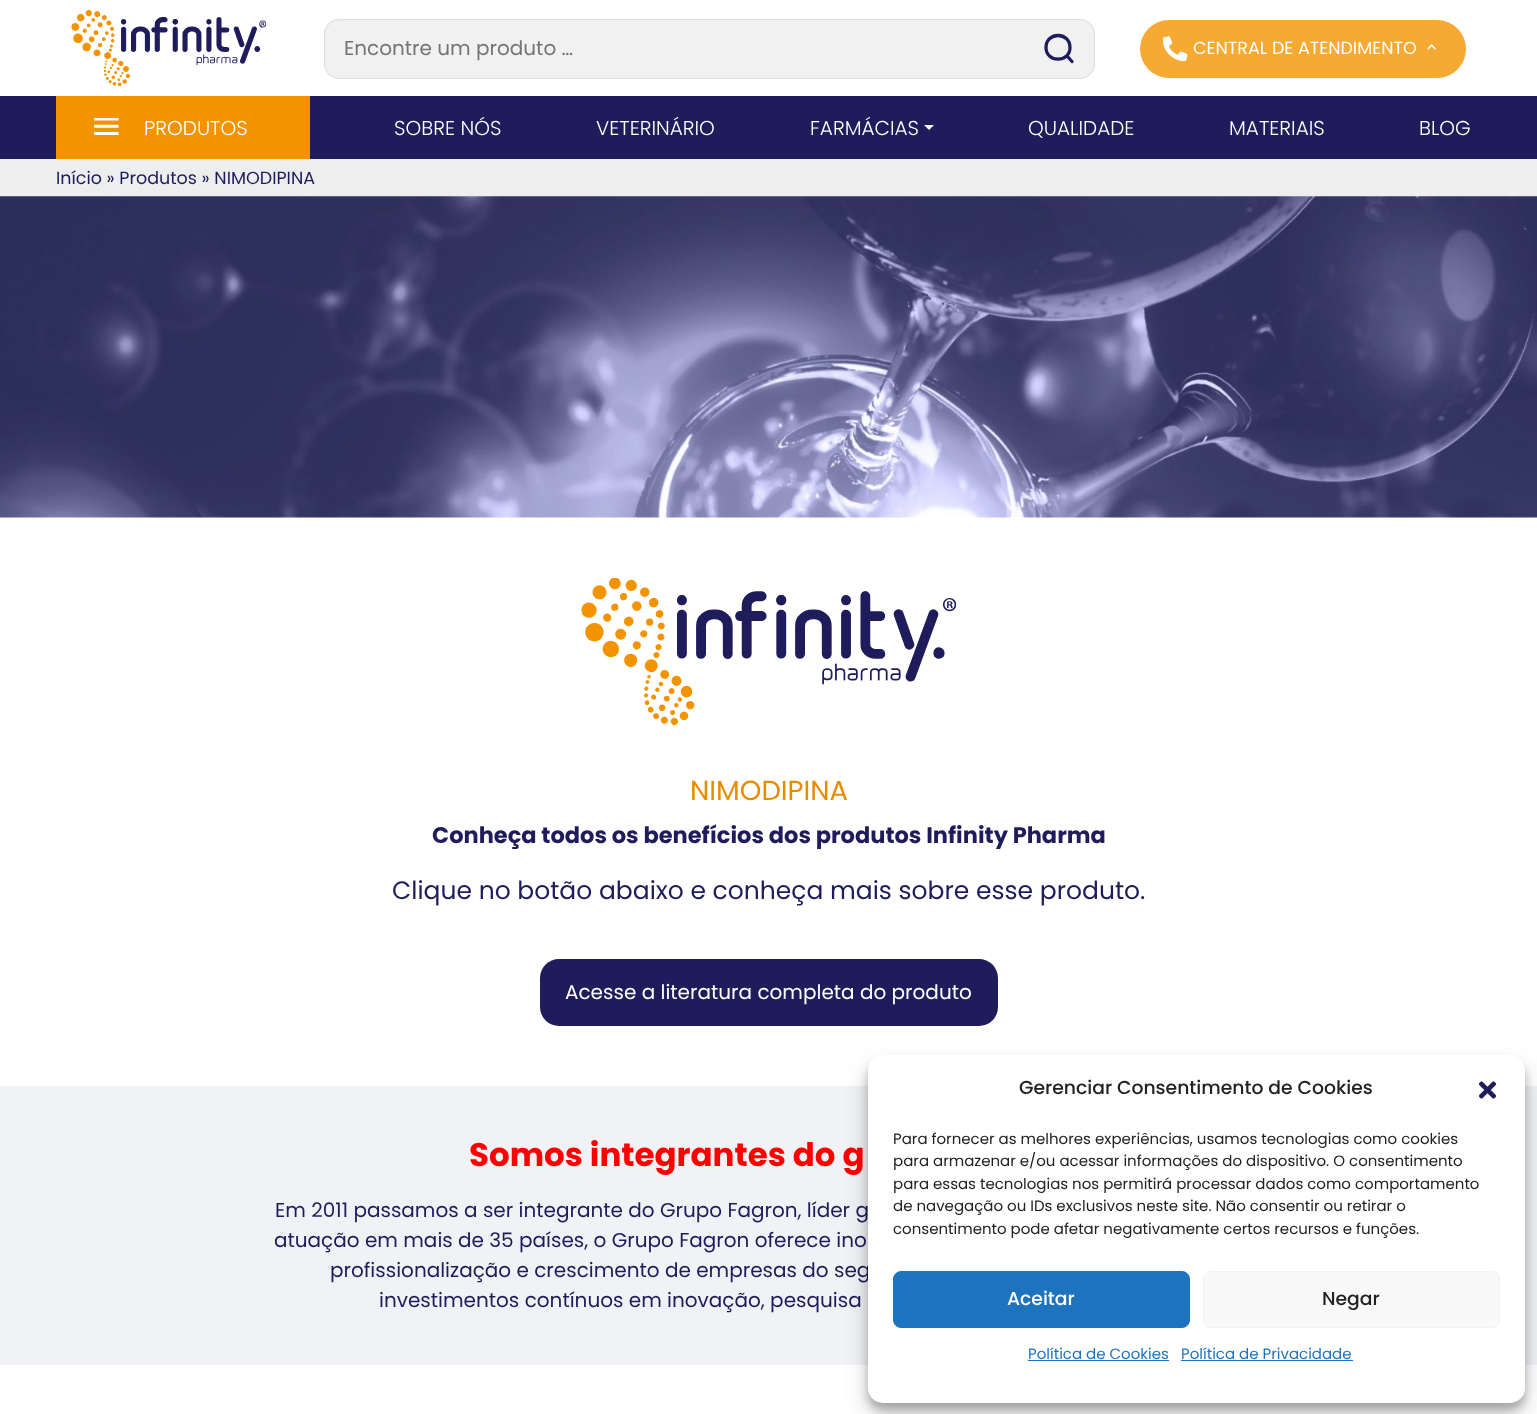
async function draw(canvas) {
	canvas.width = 1537;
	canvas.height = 1414;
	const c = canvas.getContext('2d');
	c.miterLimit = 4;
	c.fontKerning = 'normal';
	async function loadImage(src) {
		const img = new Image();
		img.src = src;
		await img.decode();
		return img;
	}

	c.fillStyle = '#fff';
	c.fillRect(0, 0, 1537, 1414);
	c.drawImage(await loadImage('img1.png'), 71, 10, 195, 76);
	c.fillStyle = '#f1f1f1';
	c.beginPath();
	c.roundRect(324, 19, 771, 60, 15);
	c.fill();
	c.beginPath();
	c.moveTo(1070, 47.5);
	c.bezierCurveTo(1070, 63, 1046, 63, 1046, 47.5);
	c.bezierCurveTo(1046, 31.5, 1070, 31.5, 1070, 47.5);
	c.closePath();
	c.moveTo(1072, 61.5);
	c.lineTo(1067.5, 56.5);
	c.strokeStyle = '#1f1c5c';
	c.lineWidth = 3.3;
	c.lineCap = 'round';
	c.lineJoin = 'round';
	c.stroke();
	c.beginPath();
	c.roundRect(324.5, 19.5, 770, 59, 14.5);
	c.strokeStyle = '#ddd';
	c.lineWidth = 1;
	c.lineJoin = 'miter';
	c.stroke();
	c.font = '20px Poppins';
	c.fillStyle = '#757575';
	c.fillText('Encontre um produto …', 344, 55);
	c.fillStyle = '#f6a933';
	c.beginPath();
	c.roundRect(1140, 20, 326, 58, 29);
	c.fill();
	c.drawImage(await loadImage('img2.png'), 1163, 36, 25, 25);
	c.font = '17.5px Poppins';
	c.fillStyle = '#fff';
	c.fillText('CENTRAL DE ATENDIMENTO', 1193, 54);
	c.save();
	c.translate(1438, 52);
	c.rotate(-90 * Math.PI / 180);
	c.fillText('>', 0, 0);
	c.restore();
	c.fillStyle = '#1f1c5c';
	c.fillRect(0, 96, 1537, 63);
	c.fillStyle = '#f39300';
	c.fillRect(56, 96, 254, 63);
	c.drawImage(await loadImage('img3.png'), 94, 118, 25, 17);
	c.font = '300 20px Poppins';
	c.fillStyle = '#fff';
	for (const [text, x, y] of [
		['PRODUTOS', 144, 135],
		['SOBRE NÓS', 394, 135],
		['VETERINÁRIO', 596, 135],
		['FARMÁCIAS', 810, 135],
	]) {
		c.fillText(text, x, y);
	}
	c.beginPath();
	c.moveTo(924, 125);
	c.lineTo(934, 125);
	c.lineTo(929, 130);
	c.closePath();
	c.fill();
	for (const [text, x, y] of [
		['QUALIDADE', 1028, 135],
		['MATERIAIS', 1229, 135],
		['BLOG', 1419, 135],
	]) {
		c.fillText(text, x, y);
	}
	c.fillStyle = '#eee';
	c.fillRect(0, 159, 1537, 37);
	c.font = '17.5px Poppins';
	c.fillStyle = '#1f1c5c';
	c.fillText('Início » Produtos » NIMODIPINA', 56, 184);
	c.drawImage(await loadImage('img4.png'), 0, 196, 1537, 322);
	c.drawImage(await loadImage('img5.png'), 581, 578, 375, 147);
	c.font = '27.5px Poppins';
	c.fillStyle = '#e78c00';
	c.fillText('NIMODIPINA', 690, 800);
	c.font = 'bold 22.5px Poppins';
	c.fillStyle = '#1f1c5c';
	c.fillText('Conheça todos os benefícios dos produtos Infinity Pharma', 432, 843);
	c.font = '25px Poppins';
	c.fillText('Clique no botão abaixo e conheça mais sobre esse produto.', 392, 899);
	c.beginPath();
	c.roundRect(540, 959, 458, 67, 19);
	c.fill();
	c.font = '20px Poppins';
	c.fillStyle = '#fff';
	c.fillText('Acesse a literatura completa do produto', 565, 999);
	c.fillStyle = '#f0f2f5';
	c.fillRect(0, 1086, 1537, 279);
	c.font = 'bold 32.5px Poppins';
	c.fillStyle = '#f00';
	c.fillText('Somos integrantes do g', 469, 1166);
	c.font = '20px Poppins';
	c.fillStyle = '#1f1c5c';
	for (const [text, x, y] of [
		['Em 2011 passamos a ser integrante do Grupo Fagron, líder g', 275, 1217],
		['atuação em mais de 35 países, o Grupo Fagron oferece ino', 274, 1247],
		['profissionalização e crescimento de empresas do seg', 330, 1277],
		['investimentos contínuos em inovação, pesquisa', 379, 1307],
	]) {
		c.fillText(text, x, y);
	}
	c.fillStyle = '#0000003b';
	c.filter = 'blur(4px)';
	c.beginPath();
	c.roundRect(868, 1063, 657, 347, 15);
	c.fill();
	c.filter = 'none';
	c.fillStyle = '#00000030';
	c.filter = 'blur(12.5px)';
	c.beginPath();
	c.roundRect(868, 1068, 657, 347, 15);
	c.fill();
	c.filter = 'none';
	c.fillStyle = '#fff';
	c.beginPath();
	c.roundRect(868, 1055, 657, 348, 15);
	c.fill();
	c.font = '500 18.75px Poppins';
	c.fillStyle = '#222';
	c.fillText('Gerenciar Consentimento de Cookies', 1019, 1094);
	c.drawImage(await loadImage('img6.png'), 1478, 1081, 19, 18);
	c.font = '15px Poppins';
	for (const [text, x, y] of [
		['Para fornecer as melhores experiências, usamos tecnologias como cookies', 893, 1144],
		['para armazenar e/ou acessar informações do dispositivo. O consentimento', 893, 1166],
		['para essas tecnologias nos permitirá processar dados como comportamento', 893, 1189],
		['de navegação ou IDs exclusivos neste site. Não consentir ou retirar o', 893, 1211],
		['consentimento pode afetar negativamente certos recursos e funções.', 893, 1234],
	]) {
		c.fillText(text, x, y);
	}
	c.fillStyle = '#1e73be';
	c.beginPath();
	c.roundRect(893.5, 1271.5, 296, 56, 7.5);
	c.fill();
	c.strokeStyle = '#1e73be';
	c.stroke();
	c.font = '500 18.75px Poppins';
	c.fillStyle = '#fff';
	c.fillText('Aceitar', 1007, 1305);
	c.fillStyle = '#f9f9f9';
	c.beginPath();
	c.roundRect(1203.5, 1271.5, 296, 56, 7.5);
	c.fill();
	c.strokeStyle = '#f2f2f2';
	c.stroke();
	c.fillStyle = '#222';
	c.fillText('Negar', 1322, 1305);
	c.font = '15px Poppins';
	c.fillStyle = '#1e73be';
	c.fillText('Política de Cookies', 1028, 1359);
	c.fillRect(1028, 1360, 141, 1);
	c.fillText('Política de Privacidade', 1181, 1359);
	c.fillRect(1181, 1360, 172, 1);
}

draw(document.querySelector('canvas'));
